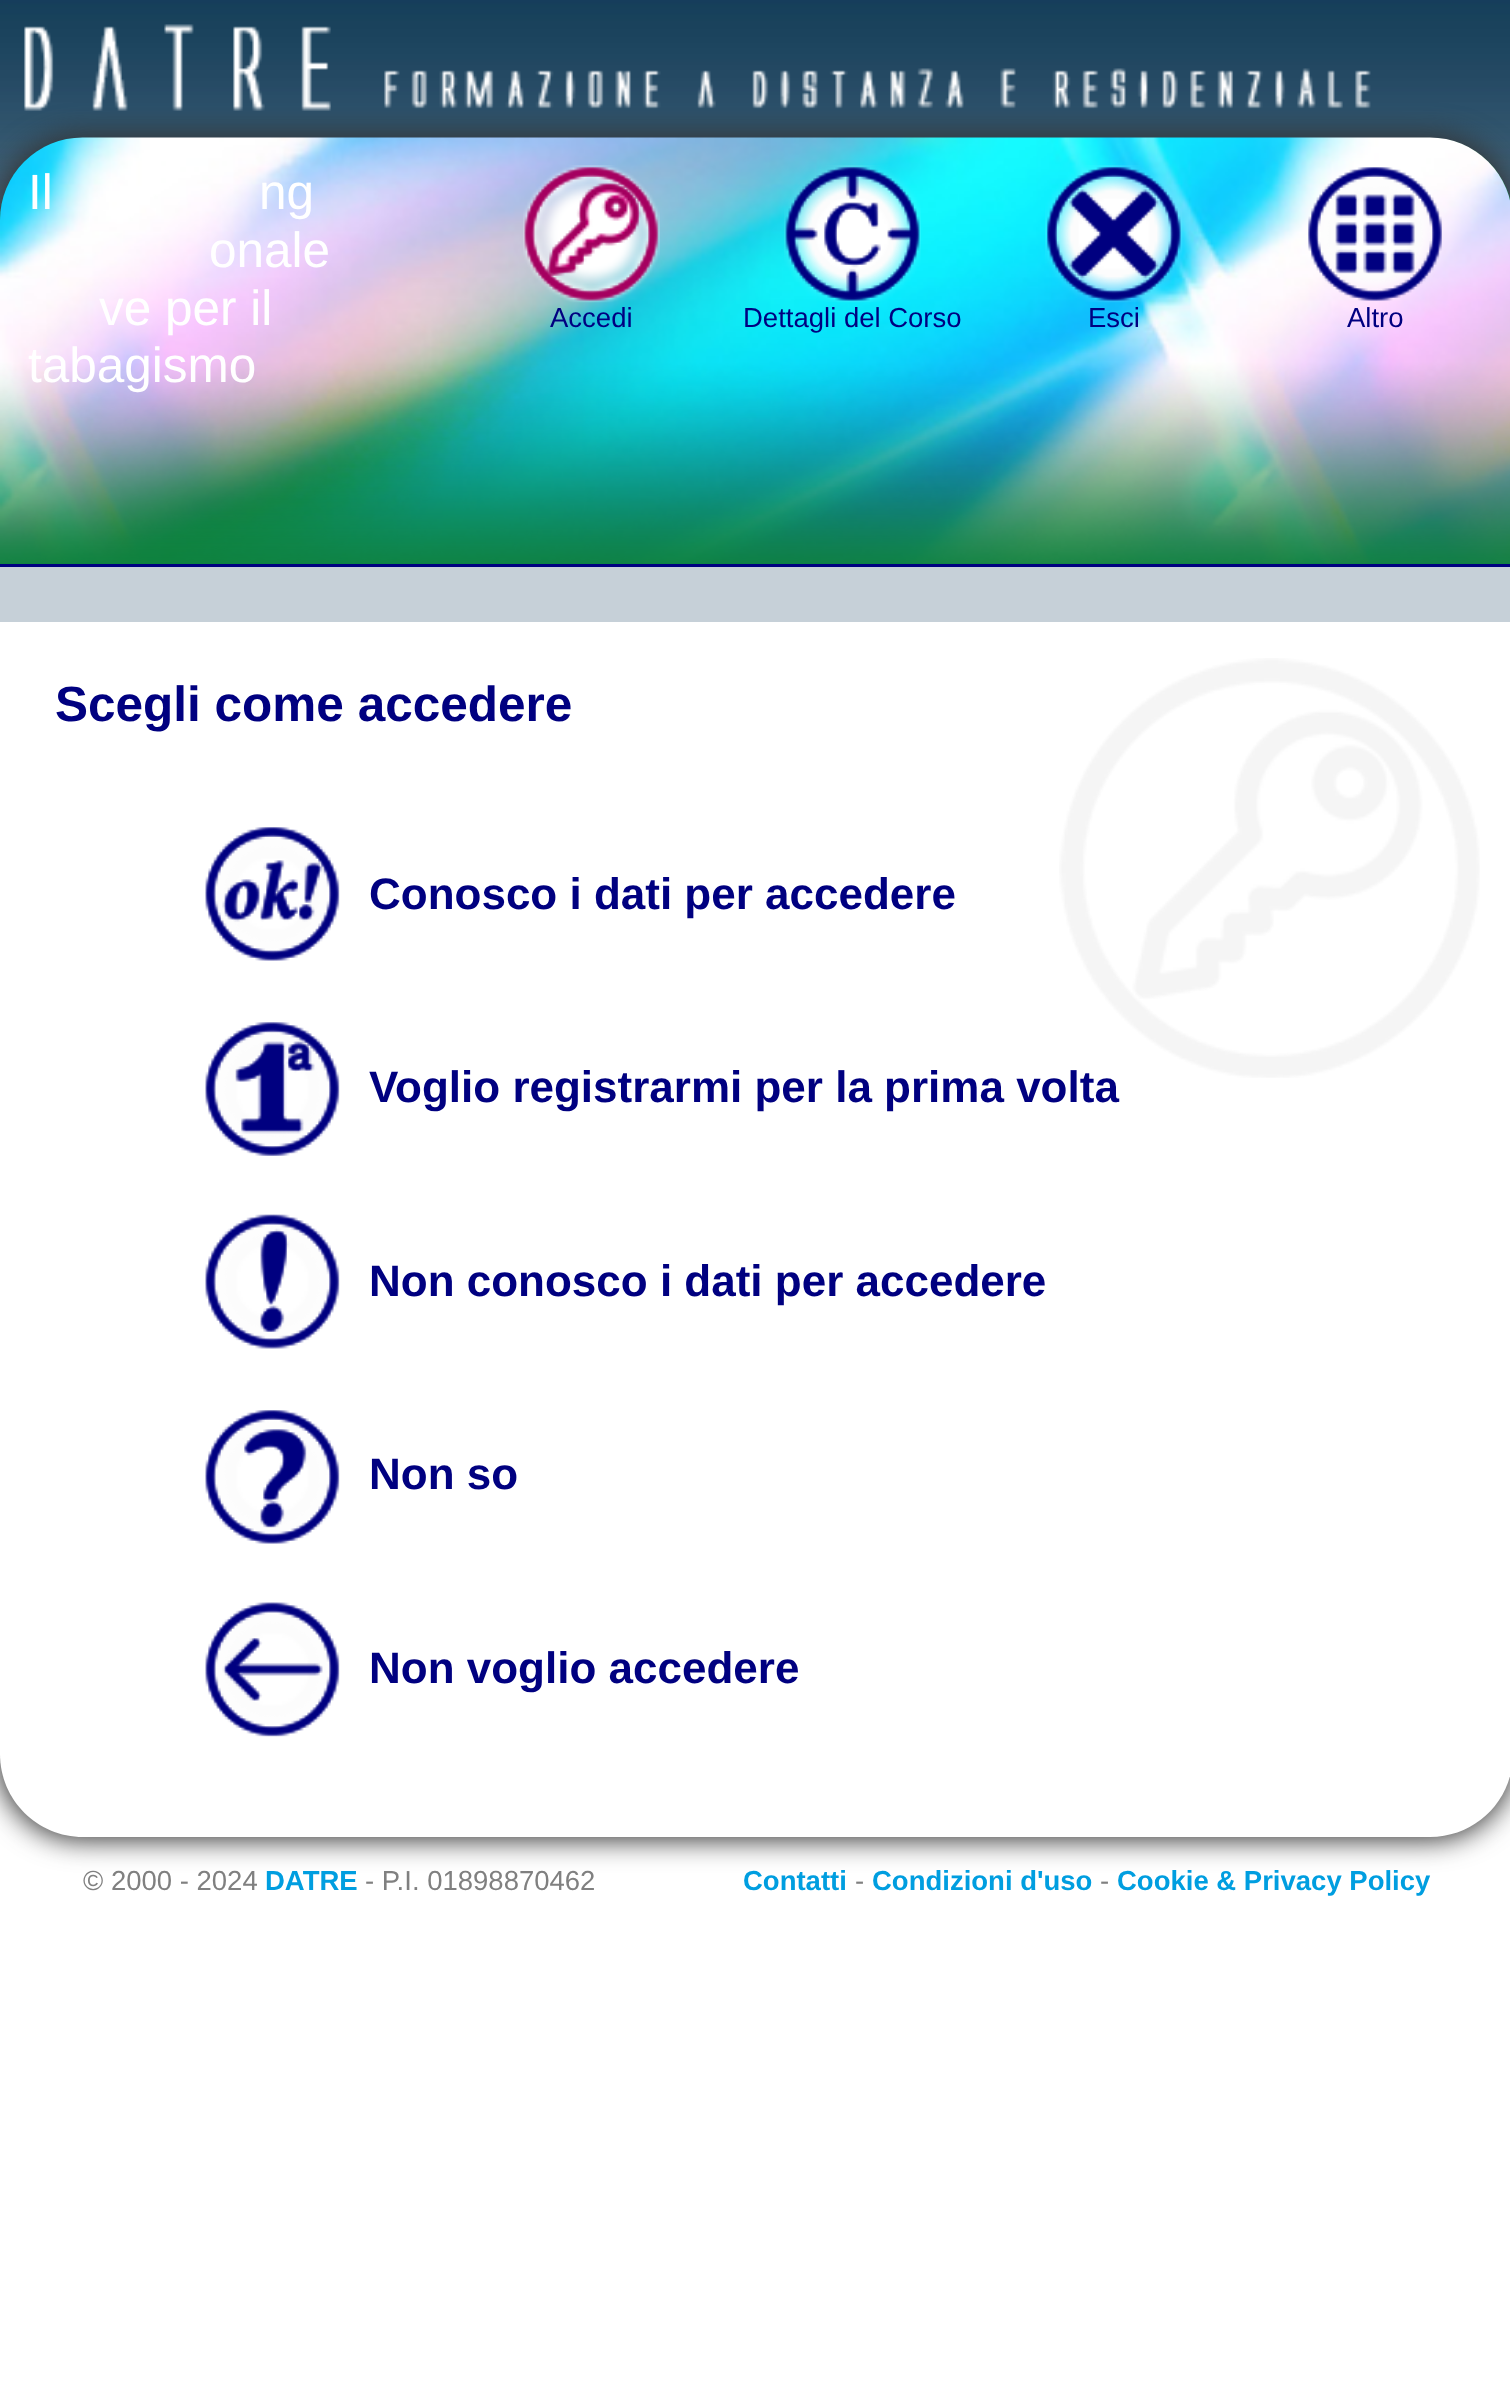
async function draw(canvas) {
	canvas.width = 1510;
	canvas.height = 2394;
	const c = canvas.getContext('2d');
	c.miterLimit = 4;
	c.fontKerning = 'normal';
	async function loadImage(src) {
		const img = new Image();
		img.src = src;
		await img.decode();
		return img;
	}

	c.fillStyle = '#fff';
	c.fillRect(0, 0, 1510, 2394);
	c.drawImage(await loadImage('img1.png'), 0, 0, 1510, 220);
	c.drawImage(await loadImage('img2.png'), 24, 24, 1347, 87);
	c.fillStyle = '#333';
	c.filter = 'blur(14px)';
	c.beginPath();
	c.roundRect(-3, 135, 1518, 1705, 85);
	c.fill();
	c.filter = 'none';
	c.fillStyle = '#0f823d';
	c.beginPath();
	c.moveTo(83, 138);
	c.lineTo(1430, 138);
	c.bezierCurveTo(1476, 138, 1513, 175, 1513, 221);
	c.lineTo(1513, 564);
	c.lineTo(0, 564);
	c.lineTo(0, 221);
	c.bezierCurveTo(0, 175, 37, 138, 83, 138);
	c.closePath();
	c.fill();
	c.drawImage(await loadImage('img3.png'), 0, 137, 1510, 427);
	c.font = '49.5px Liberation Sans';
	c.fillStyle = '#fff';
	for (const [text, x, y] of [
		['Il', 28, 209],
		['ng', 259, 209],
		['onale', 209, 267],
		['ve per il', 99, 325],
		['tabagismo', 28, 382],
	]) {
		c.fillText(text, x, y);
	}
	c.drawImage(await loadImage('img4.png'), 523, 165, 137, 138);
	c.drawImage(await loadImage('img5.png'), 524, 167, 135, 134);
	c.font = '27.5px Liberation Sans';
	c.fillStyle = '#000080';
	c.fillText('Accedi', 550, 327);
	c.drawImage(await loadImage('img6.png'), 784, 165, 137, 138);
	c.drawImage(await loadImage('img7.png'), 785, 167, 135, 134);
	c.fillText('Dettagli del Corso', 743, 327);
	c.drawImage(await loadImage('img8.png'), 1045, 165, 138, 138);
	c.drawImage(await loadImage('img9.png'), 1047, 167, 134, 134);
	c.fillText('Esci', 1088, 327);
	c.drawImage(await loadImage('img10.png'), 1308, 167, 134, 134);
	c.drawImage(await loadImage('img11.png'), 1308, 167, 134, 134);
	c.fillText('Altro', 1347, 327);
	c.fillStyle = '#c6d0d8';
	c.fillRect(0, 567, 1510, 55);
	c.fillStyle = '#000080';
	c.fillRect(0, 564, 1510, 3);
	c.fillStyle = '#fff';
	c.beginPath();
	c.moveTo(0, 622);
	c.lineTo(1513, 622);
	c.lineTo(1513, 1754);
	c.bezierCurveTo(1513, 1800, 1476, 1837, 1430, 1837);
	c.lineTo(83, 1837);
	c.bezierCurveTo(37, 1837, 0, 1800, 0, 1754);
	c.closePath();
	c.fill();
	c.drawImage(await loadImage('img12.png'), 1059, 658, 421, 420);
	c.font = 'bold 49.5px Liberation Sans';
	c.fillStyle = '#000080';
	c.fillText('Scegli come accedere', 55, 721);
	c.drawImage(await loadImage('img13.png'), 205, 827, 135, 134);
	c.drawImage(await loadImage('img14.png'), 205, 827, 135, 134);
	c.font = 'bold 44px Liberation Sans';
	c.fillText('Conosco i dati per accedere', 369, 909);
	c.drawImage(await loadImage('img15.png'), 205, 1022, 135, 134);
	c.drawImage(await loadImage('img16.png'), 205, 1022, 135, 134);
	c.fillText('Voglio registrarmi per la prima volta', 369, 1102);
	c.drawImage(await loadImage('img17.png'), 205, 1214, 135, 135);
	c.drawImage(await loadImage('img18.png'), 205, 1214, 135, 135);
	c.fillText('Non conosco i dati per accedere', 369, 1296);
	c.drawImage(await loadImage('img19.png'), 205, 1410, 135, 134);
	c.drawImage(await loadImage('img20.png'), 205, 1410, 135, 134);
	c.fillText('Non so', 369, 1489);
	c.drawImage(await loadImage('img21.png'), 205, 1602, 135, 135);
	c.drawImage(await loadImage('img22.png'), 205, 1602, 135, 135);
	c.fillText('Non voglio accedere', 369, 1683);
	c.font = '27.5px Liberation Sans';
	c.fillStyle = '#808080';
	c.fillText('© 2000 - 2024', 83, 1890);
	c.font = 'bold 27.5px Liberation Sans';
	c.fillStyle = '#009ee0';
	c.fillText('DATRE', 265, 1890);
	c.font = '27.5px Liberation Sans';
	c.fillStyle = '#808080';
	c.fillText('- P.I. 01898870462', 365, 1890);
	c.font = 'bold 27.5px Liberation Sans';
	c.fillStyle = '#009ee0';
	c.fillText('Contatti', 743, 1890);
	c.font = '27.5px Liberation Sans';
	c.fillStyle = '#808080';
	c.fillText('-', 855, 1890);
	c.font = 'bold 27.5px Liberation Sans';
	c.fillStyle = '#009ee0';
	c.fillText('Condizioni d\'uso', 872, 1890);
	c.font = '27.5px Liberation Sans';
	c.fillStyle = '#808080';
	c.fillText('-', 1100, 1890);
	c.font = 'bold 27.5px Liberation Sans';
	c.fillStyle = '#009ee0';
	c.fillText('Cookie & Privacy Policy', 1117, 1890);
}

draw(document.querySelector('canvas'));
